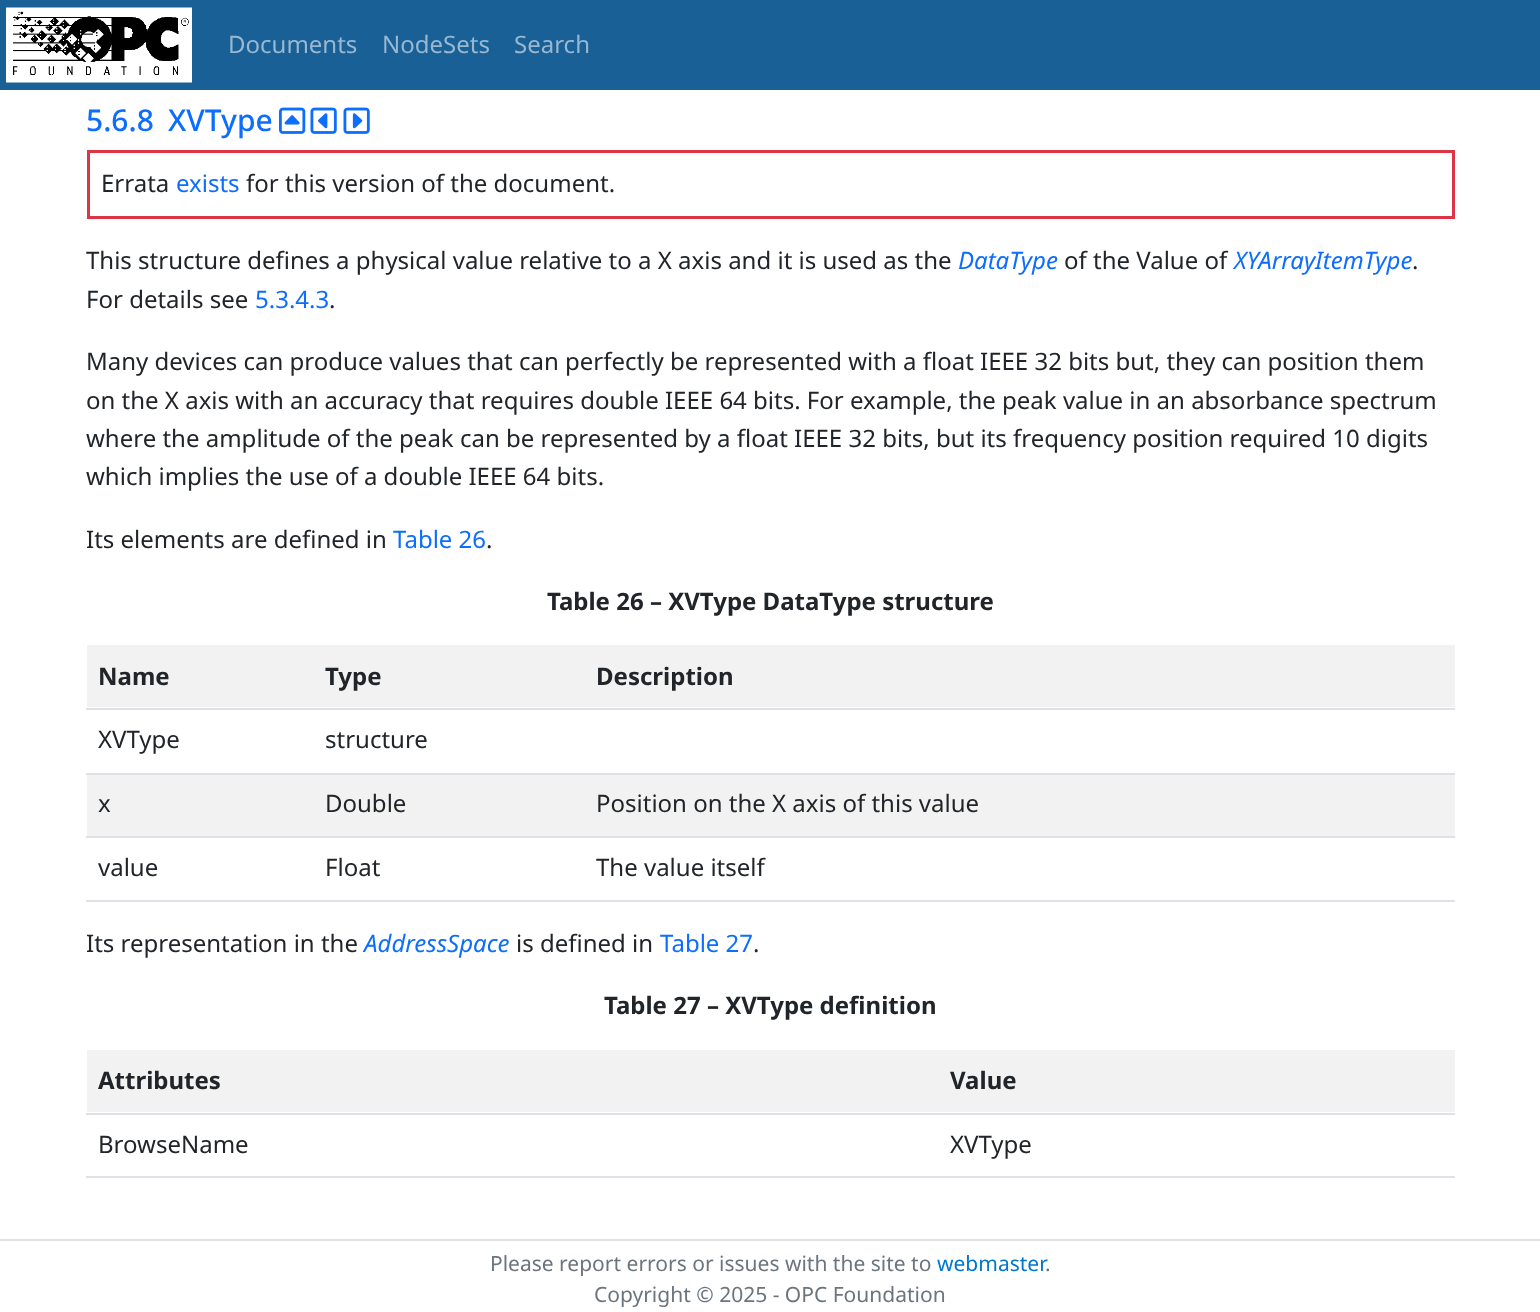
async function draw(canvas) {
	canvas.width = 1540;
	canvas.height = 1312;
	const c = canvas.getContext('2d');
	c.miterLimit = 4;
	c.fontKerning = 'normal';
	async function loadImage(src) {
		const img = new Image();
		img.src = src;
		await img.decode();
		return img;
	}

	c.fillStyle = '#fff';
	c.fillRect(0, 0, 1540, 1312);
	c.fillStyle = '#196096';
	c.fillRect(0, 0, 1540, 90);
	c.drawImage(await loadImage('img1.png'), 6, 7, 186, 76);
	c.font = '24px Noto Sans';
	c.fillStyle = '#98b7d0';
	for (const [text, x, y] of [
		['Documents', 228, 53],
		['NodeSets', 382, 53],
		['Search', 514, 53],
	]) {
		c.fillText(text, x, y);
	}
	c.font = '500 30px Noto Sans';
	c.fillStyle = '#0d6efd';
	c.fillText('5.6.8', 86, 131);
	c.fillText('XVType', 168, 131);
	c.drawImage(await loadImage('img2.png'), 279, 107, 27, 27);
	c.drawImage(await loadImage('img3.png'), 310, 107, 27, 27);
	c.drawImage(await loadImage('img4.png'), 343, 107, 27, 27);
	c.strokeStyle = '#dc3545';
	c.lineWidth = 3;
	c.strokeRect(88.5, 151.5, 1365, 66);
	c.font = '24px Noto Sans';
	c.fillStyle = '#212529';
	c.fillText('Errata', 101, 192);
	c.fillStyle = '#0d6efd';
	c.fillText('exists', 176, 192);
	c.fillStyle = '#212529';
	c.fillText('for this version of the document.', 246, 192);
	c.fillText('This structure defines a physical value relative to a X axis and it is used as the', 86, 269);
	c.font = 'italic 24px Noto Sans';
	c.fillStyle = '#0d6efd';
	c.fillText('DataType', 958, 269);
	c.font = '24px Noto Sans';
	c.fillStyle = '#212529';
	c.fillText('of the Value of', 1064, 269);
	c.font = 'italic 24px Noto Sans';
	c.fillStyle = '#0d6efd';
	c.fillText('XYArrayItemType', 1234, 269);
	c.font = '24px Noto Sans';
	c.fillStyle = '#212529';
	c.fillText('.', 1412, 269);
	c.fillText('For details see', 86, 308);
	c.fillStyle = '#0d6efd';
	c.fillText('5.3.4.3', 255, 308);
	c.fillStyle = '#212529';
	for (const [text, x, y] of [
		['.', 329, 308],
		['Many devices can produce values that can perfectly be represented with a float IEEE 32 bits but, they can position them', 86, 370],
		['on the X axis with an accuracy that requires double IEEE 64 bits. For example, the peak value in an absorbance spectrum', 86, 409],
		['where the amplitude of the peak can be represented by a float IEEE 32 bits, but its frequency position required 10 digits', 86, 447],
		['which implies the use of a double IEEE 64 bits.', 86, 485],
		['Its elements are defined in', 86, 548],
	]) {
		c.fillText(text, x, y);
	}
	c.fillStyle = '#0d6efd';
	c.fillText('Table 26', 393, 548);
	c.fillStyle = '#212529';
	c.fillText('.', 486, 548);
	c.font = 'bold 24px Noto Sans';
	c.fillText('Table 26 – XVType DataType structure', 547, 610);
	c.fillStyle = '#f2f2f2';
	c.fillRect(87, 645, 1368, 62);
	c.fillStyle = '#212529';
	c.fillText('Name', 98, 685);
	c.fillText('Type', 325, 685);
	c.fillStyle = '#dee2e6';
	c.fillRect(86, 708, 1369, 2);
	c.fillStyle = '#212529';
	c.fillText('Description', 596, 685);
	c.font = '24px Noto Sans';
	c.fillText('XVType', 98, 748);
	c.fillText('structure', 325, 748);
	c.fillStyle = '#dee2e6';
	c.fillRect(86, 773, 1369, 2);
	c.fillStyle = '#f2f2f2';
	c.fillRect(87, 775, 1368, 61);
	c.fillStyle = '#212529';
	c.fillText('x', 98, 812);
	c.fillText('Double', 325, 812);
	c.fillStyle = '#dee2e6';
	c.fillRect(86, 836, 1369, 2);
	c.fillStyle = '#212529';
	for (const [text, x, y] of [
		['Position on the X axis of this value', 596, 812],
		['value', 98, 876],
		['Float', 325, 876],
	]) {
		c.fillText(text, x, y);
	}
	c.fillStyle = '#dee2e6';
	c.fillRect(86, 900, 1369, 2);
	c.fillStyle = '#212529';
	c.fillText('The value itself', 596, 876);
	c.fillText('Its representation in the', 86, 952);
	c.font = 'italic 24px Noto Sans';
	c.fillStyle = '#0d6efd';
	c.fillText('AddressSpace', 364, 952);
	c.font = '24px Noto Sans';
	c.fillStyle = '#212529';
	c.fillText('is defined in', 516, 952);
	c.fillStyle = '#0d6efd';
	c.fillText('Table 27', 660, 952);
	c.fillStyle = '#212529';
	c.fillText('.', 753, 952);
	c.font = 'bold 24px Noto Sans';
	c.fillText('Table 27 – XVType definition', 604, 1014);
	c.fillStyle = '#f2f2f2';
	c.fillRect(87, 1050, 1368, 62);
	c.fillStyle = '#212529';
	c.fillText('Attributes', 98, 1089);
	c.fillStyle = '#dee2e6';
	c.fillRect(86, 1113, 1369, 2);
	c.fillStyle = '#212529';
	c.fillText('Value', 950, 1089);
	c.font = '24px Noto Sans';
	c.fillText('BrowseName', 98, 1153);
	c.fillStyle = '#dee2e6';
	c.fillRect(86, 1176, 1369, 2);
	c.fillStyle = '#212529';
	c.fillText('XVType', 950, 1153);
	c.fillStyle = '#dee2e6';
	c.fillRect(0, 1239, 1540, 2);
	c.font = '21px Noto Sans';
	c.fillStyle = '#6c757d';
	c.fillText('Please report errors or issues with the site to', 490, 1271);
	c.fillStyle = '#07c';
	c.fillText('webmaster', 937, 1271);
	c.fillStyle = '#6c757d';
	c.fillText('.', 1045, 1271);
	c.fillText('Copyright © 2025 - OPC Foundation', 594, 1302);
}

draw(document.querySelector('canvas'));
